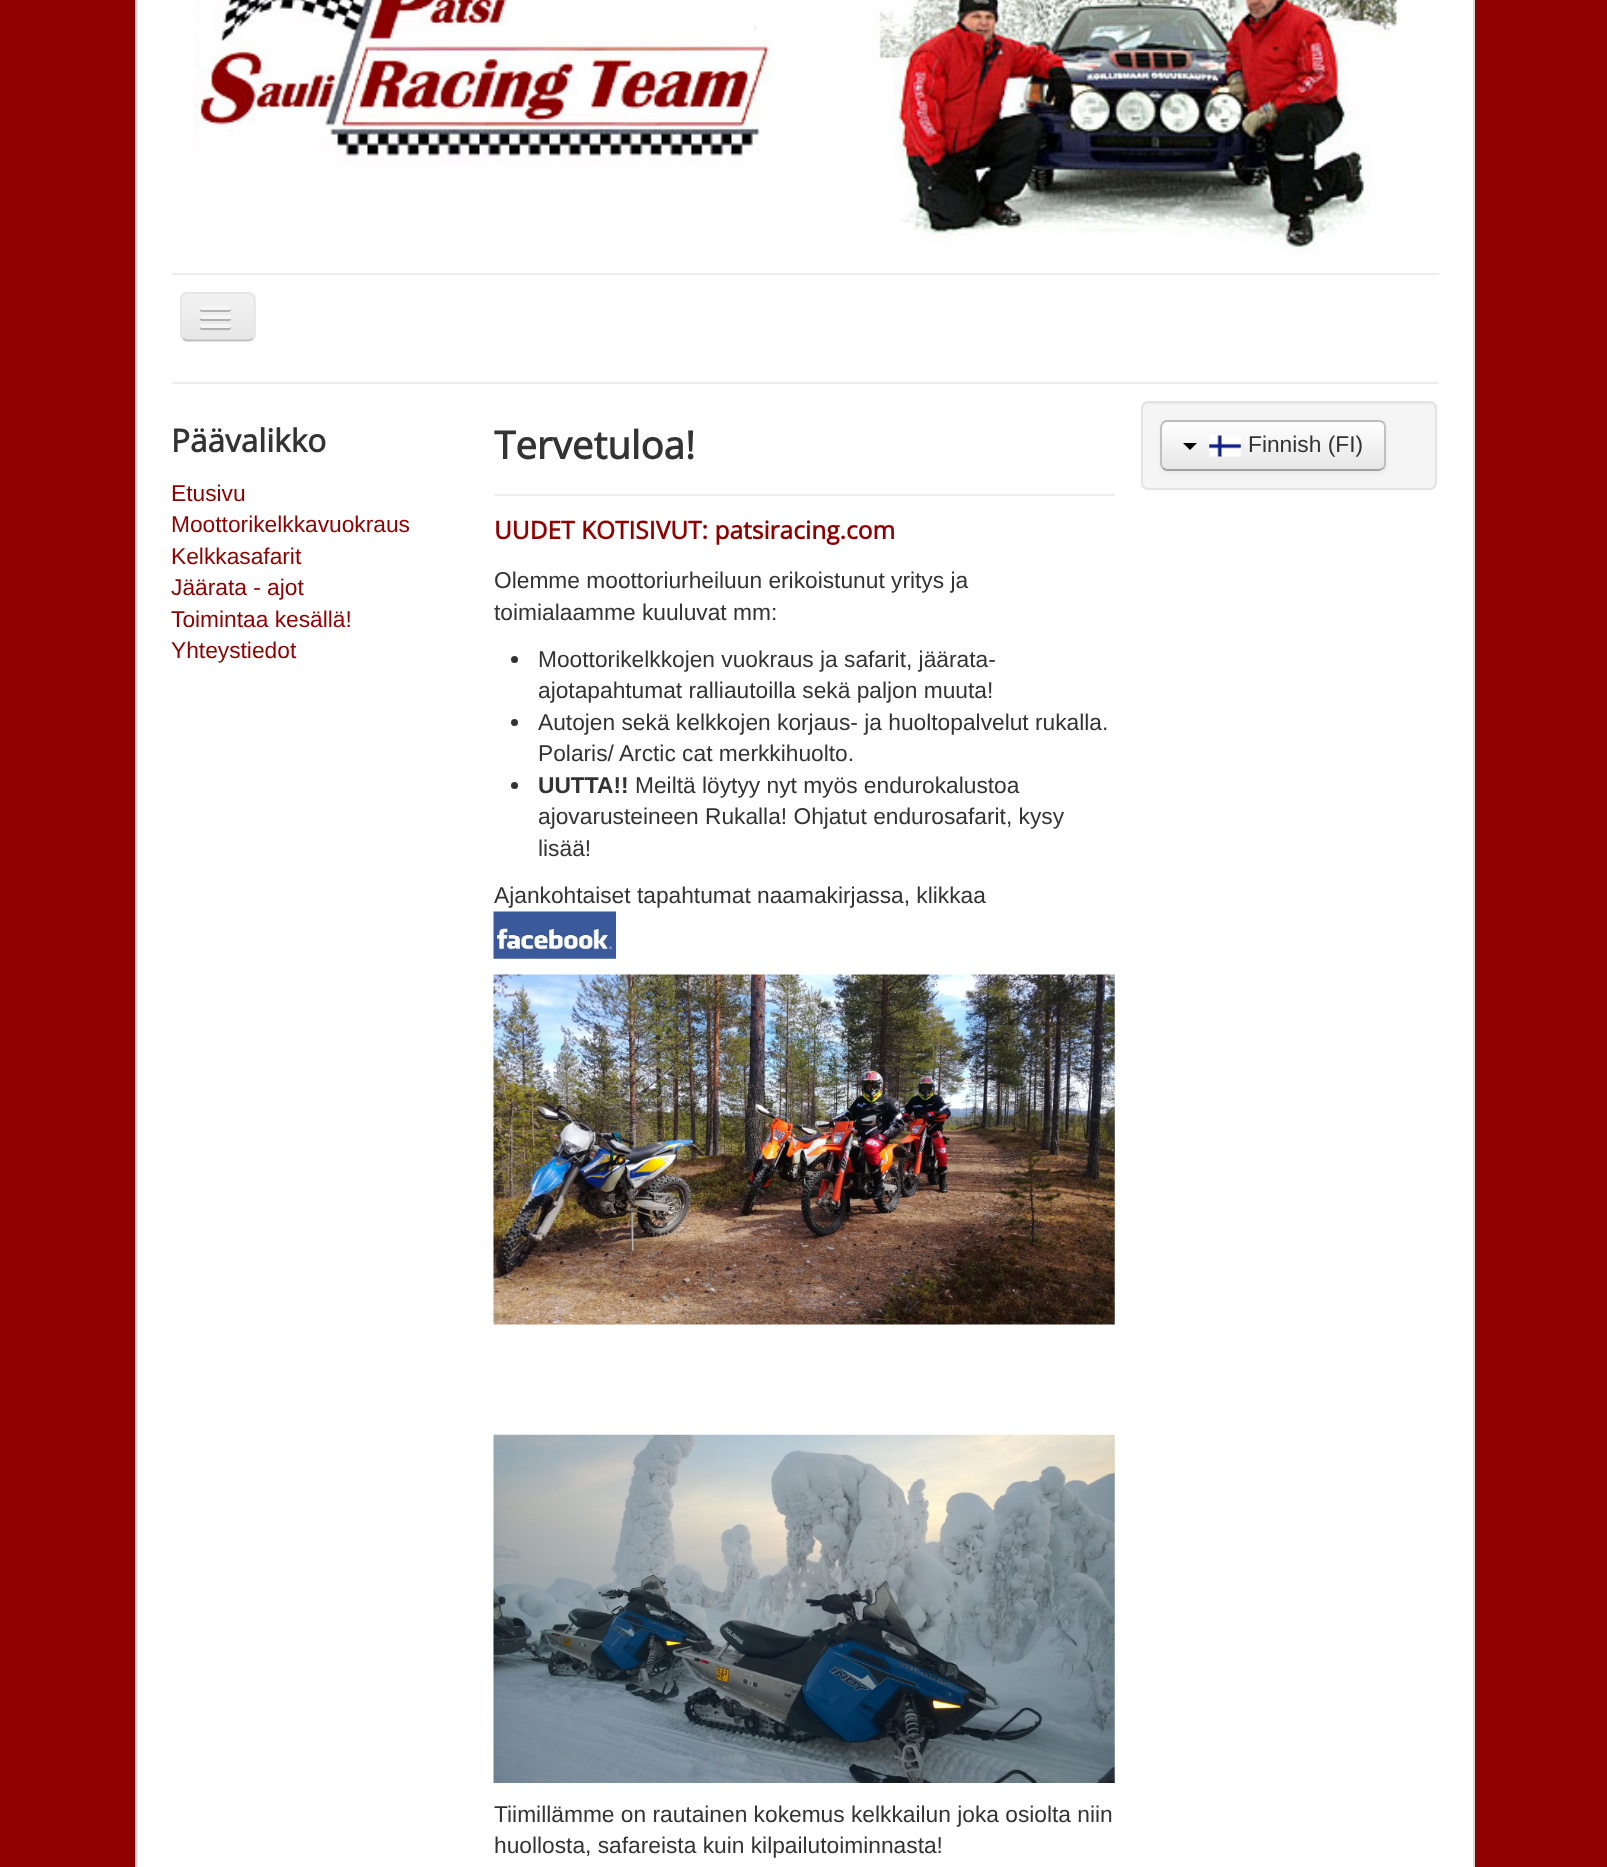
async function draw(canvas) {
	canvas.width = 1607;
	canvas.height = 1867;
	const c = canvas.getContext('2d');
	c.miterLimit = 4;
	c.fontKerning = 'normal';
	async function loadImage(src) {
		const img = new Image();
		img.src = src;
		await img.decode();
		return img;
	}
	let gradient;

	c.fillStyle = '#900001';
	c.fillRect(0, 0, 1607, 1867);
	c.fillStyle = '#fff';
	c.beginPath();
	c.rect(136, -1, 1338, 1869);
	c.fill();
	c.strokeStyle = '#d9d9d9';
	c.lineWidth = 2;
	c.stroke();
	c.drawImage(await loadImage('img1.png'), 194, 0, 1203, 255);
	c.fillStyle = '#ececec';
	c.fillRect(172, 273, 1267, 2);
	c.fillRect(172, 382, 1267, 2);
	c.fillStyle = '#ededed';
	c.beginPath();
	c.roundRect(180, 292, 76, 49, 7);
	c.fill();
	c.save();
	c.beginPath();
	c.roundRect(180, 292, 76, 49, 7);
	c.clip();
	gradient = c.createLinearGradient(218, 294, 218, 340);
	gradient.addColorStop(0, '#f2f2f2');
	gradient.addColorStop(1, '#e6e6e6');
	c.fillStyle = gradient;
	c.fillRect(180, 294, 76, 46);
	c.restore();
	c.beginPath();
	c.moveTo(253, 338.5);
	c.bezierCurveTo(251.5, 339.5, 250, 340.5, 248.5, 340.5);
	c.lineTo(187, 340.5);
	c.bezierCurveTo(185.5, 340.5, 184, 339.5, 183, 338.5);
	c.strokeStyle = '#bfbfbf';
	c.lineWidth = 1.8;
	c.stroke();
	c.beginPath();
	c.moveTo(183, 338.5);
	c.bezierCurveTo(182, 337.5, 181, 336, 181, 334);
	c.lineTo(181, 299);
	c.bezierCurveTo(181, 297.5, 182, 296, 183, 295);
	c.bezierCurveTo(184, 294, 185.5, 293, 187, 293);
	c.lineTo(248.5, 293);
	c.bezierCurveTo(250, 293, 251.5, 294, 253, 295);
	c.bezierCurveTo(254, 296, 254.5, 297.5, 254.5, 299);
	c.lineTo(254.5, 334);
	c.bezierCurveTo(254.5, 336, 254, 337.5, 253, 338.5);
	c.strokeStyle = '#e6e6e6';
	c.stroke();
	c.fillStyle = '#b2b2b2';
	c.beginPath();
	c.moveTo(200, 309.5);
	c.bezierCurveTo(199, 313, 205.5, 312, 206.5, 312);
	c.lineTo(224.5, 312);
	c.bezierCurveTo(225, 312, 233, 313, 230.5, 309);
	c.lineTo(229.5, 309.5);
	c.lineTo(201, 309.5);
	c.closePath();
	c.fill();
	c.fillStyle = '#f5f5f5';
	c.beginPath();
	c.roundRect(200, 306, 31, 4, 2);
	c.fill();
	c.fillStyle = '#b0b0b0';
	c.beginPath();
	c.moveTo(200, 318);
	c.bezierCurveTo(198.5, 322, 205.5, 321, 206.5, 321);
	c.lineTo(224.5, 321);
	c.bezierCurveTo(225.5, 321, 230.5, 322, 231, 319.5);
	c.lineTo(230.5, 318);
	c.lineTo(229.5, 318.5);
	c.bezierCurveTo(227, 319, 201, 319, 200, 318);
	c.closePath();
	c.fill();
	c.fillStyle = '#f5f5f5';
	c.beginPath();
	c.roundRect(200, 315, 31, 4, 2);
	c.fill();
	c.fillStyle = '#afafaf';
	c.beginPath();
	c.moveTo(200.5, 327);
	c.bezierCurveTo(198, 331, 206, 330, 206.5, 330);
	c.lineTo(224.5, 330);
	c.bezierCurveTo(225.5, 330, 230.5, 331, 231, 328.5);
	c.bezierCurveTo(231, 328, 231, 327, 230.5, 326.5);
	c.lineTo(229.5, 327);
	c.bezierCurveTo(227, 327.5, 201, 327.5, 200.5, 327);
	c.closePath();
	c.fill();
	c.fillStyle = '#f5f5f5';
	c.beginPath();
	c.roundRect(200, 324, 31, 4, 2);
	c.fill();
	c.font = 'bold 31.5px Open Sans';
	c.fillStyle = '#333';
	c.fillText('Päävalikko', 171, 452);
	c.font = '22.75px Liberation Sans';
	c.fillStyle = '#900001';
	for (const [text, x, y] of [
		['Etusivu', 171, 501],
		['Moottorikelkkavuokraus', 171, 532],
		['Kelkkasafarit', 171, 564],
		['Jäärata - ajot', 171, 595],
		['Toimintaa kesällä!', 171, 627],
		['Yhteystiedot', 171, 658],
	]) {
		c.fillText(text, x, y);
	}
	c.fillStyle = '#eee';
	c.fillRect(494, 494, 621, 2);
	c.font = 'bold 38.5px Open Sans';
	c.fillStyle = '#333';
	c.fillText('Tervetuloa!', 494, 459);
	c.font = 'bold 24.5px Open Sans';
	c.fillStyle = '#900001';
	c.fillText('UUDET KOTISIVUT: patsiracing.com', 494, 539);
	c.font = '22.75px Liberation Sans';
	c.fillStyle = '#333';
	c.fillText('Olemme moottoriurheiluun erikoistunut yritys ja', 494, 588);
	c.fillText('toimialaamme kuuluvat mm:', 494, 620);
	c.beginPath();
	c.arc(514.5, 659.5, 3.5, 0, 2 * Math.PI);
	c.fill();
	c.fillText('Moottorikelkkojen vuokraus ja safarit, jäärata-', 538, 667);
	c.fillText('ajotapahtumat ralliautoilla sekä paljon muuta!', 538, 698);
	c.beginPath();
	c.arc(514.5, 722.5, 3.5, 0, 2 * Math.PI);
	c.fill();
	c.fillText('Autojen sekä kelkkojen korjaus- ja huoltopalvelut rukalla.', 538, 730);
	c.fillText('Polaris/ Arctic cat merkkihuolto.', 538, 761);
	c.beginPath();
	c.arc(514.5, 785.5, 3.5, 0, 2 * Math.PI);
	c.fill();
	c.font = 'bold 22.75px Liberation Sans';
	c.fillText('UUTTA!!', 538, 793);
	c.font = '22.75px Liberation Sans';
	for (const [text, x, y] of [
		['Meiltä löytyy nyt myös endurokalustoa', 635, 793],
		['ajovarusteineen Rukalla! Ohjatut endurosafarit, kysy', 538, 824],
		['lisää!', 538, 856],
		['Ajankohtaiset tapahtumat naamakirjassa, klikkaa', 494, 903],
	]) {
		c.fillText(text, x, y);
	}
	c.drawImage(await loadImage('img2.png'), 493, 911, 123, 48);
	c.drawImage(await loadImage('img3.png'), 493, 974, 622, 351);
	c.drawImage(await loadImage('img4.png'), 493, 1434, 622, 349);
	c.fillText('Tiimillämme on rautainen kokemus kelkkailun joka osiolta niin', 494, 1822);
	c.fillText('huollosta, safareista kuin kilpailutoiminnasta!', 494, 1853);
	c.fillStyle = '#f5f5f5';
	c.beginPath();
	c.roundRect(1141, 401, 296, 89, 7);
	c.fill();
	c.fillStyle = '#e9e9e9';
	c.beginPath();
	c.moveTo(1148, 404);
	c.lineTo(1430, 404);
	c.bezierCurveTo(1433, 404, 1435, 407, 1435, 410);
	c.bezierCurveTo(1435, 407, 1434, 403, 1430, 403);
	c.lineTo(1147, 403);
	c.bezierCurveTo(1143, 404, 1143, 407, 1143, 410);
	c.bezierCurveTo(1143, 407, 1145, 404, 1148, 404);
	c.closePath();
	c.fill();
	c.beginPath();
	c.roundRect(1142, 402, 294, 87, 6);
	c.strokeStyle = '#e3e3e3';
	c.lineWidth = 2;
	c.stroke();
	c.fillStyle = '#0000000d';
	c.filter = 'blur(2px)';
	c.beginPath();
	c.roundRect(1160, 422, 226, 51, 7);
	c.fill();
	c.filter = 'none';
	c.fillStyle = '#f5f5f5';
	c.beginPath();
	c.roundRect(1160, 420, 226, 51, 7);
	c.fill();
	c.save();
	c.beginPath();
	c.roundRect(1160, 420, 226, 51, 7);
	c.clip();
	gradient = c.createLinearGradient(1273, 422, 1273, 469);
	gradient.addColorStop(0, '#fff');
	gradient.addColorStop(1, '#e6e6e6');
	c.fillStyle = gradient;
	c.fillRect(1160, 422, 226, 47);
	c.restore();
	c.beginPath();
	c.moveTo(1383.5, 468);
	c.bezierCurveTo(1382, 469, 1380.5, 470, 1379, 470);
	c.lineTo(1167, 470);
	c.bezierCurveTo(1165.5, 470, 1164, 469, 1163, 468);
	c.strokeStyle = '#a2a2a2';
	c.lineWidth = 1.8;
	c.stroke();
	c.beginPath();
	c.moveTo(1163, 468);
	c.bezierCurveTo(1162, 467, 1161, 465.5, 1161, 464);
	c.lineTo(1161, 427);
	c.bezierCurveTo(1161, 425.5, 1162, 424, 1163, 422.5);
	c.bezierCurveTo(1164, 421.5, 1165.5, 421, 1167, 421);
	c.lineTo(1379, 421);
	c.bezierCurveTo(1380.5, 421, 1382, 421.5, 1383.5, 422.5);
	c.bezierCurveTo(1384.5, 424, 1385, 425.5, 1385, 427);
	c.lineTo(1385, 464);
	c.bezierCurveTo(1385, 465.5, 1384.5, 467, 1383.5, 468);
	c.strokeStyle = '#bbb';
	c.stroke();
	c.fillStyle = '#000';
	c.beginPath();
	c.moveTo(1183, 443);
	c.lineTo(1197, 443);
	c.lineTo(1190, 450);
	c.closePath();
	c.fill();
	c.drawImage(await loadImage('img5.png'), 1209, 435, 32, 22);
	c.fillStyle = '#333';
	c.fillText('Finnish (FI)', 1248, 452);
}

draw(document.querySelector('canvas'));
